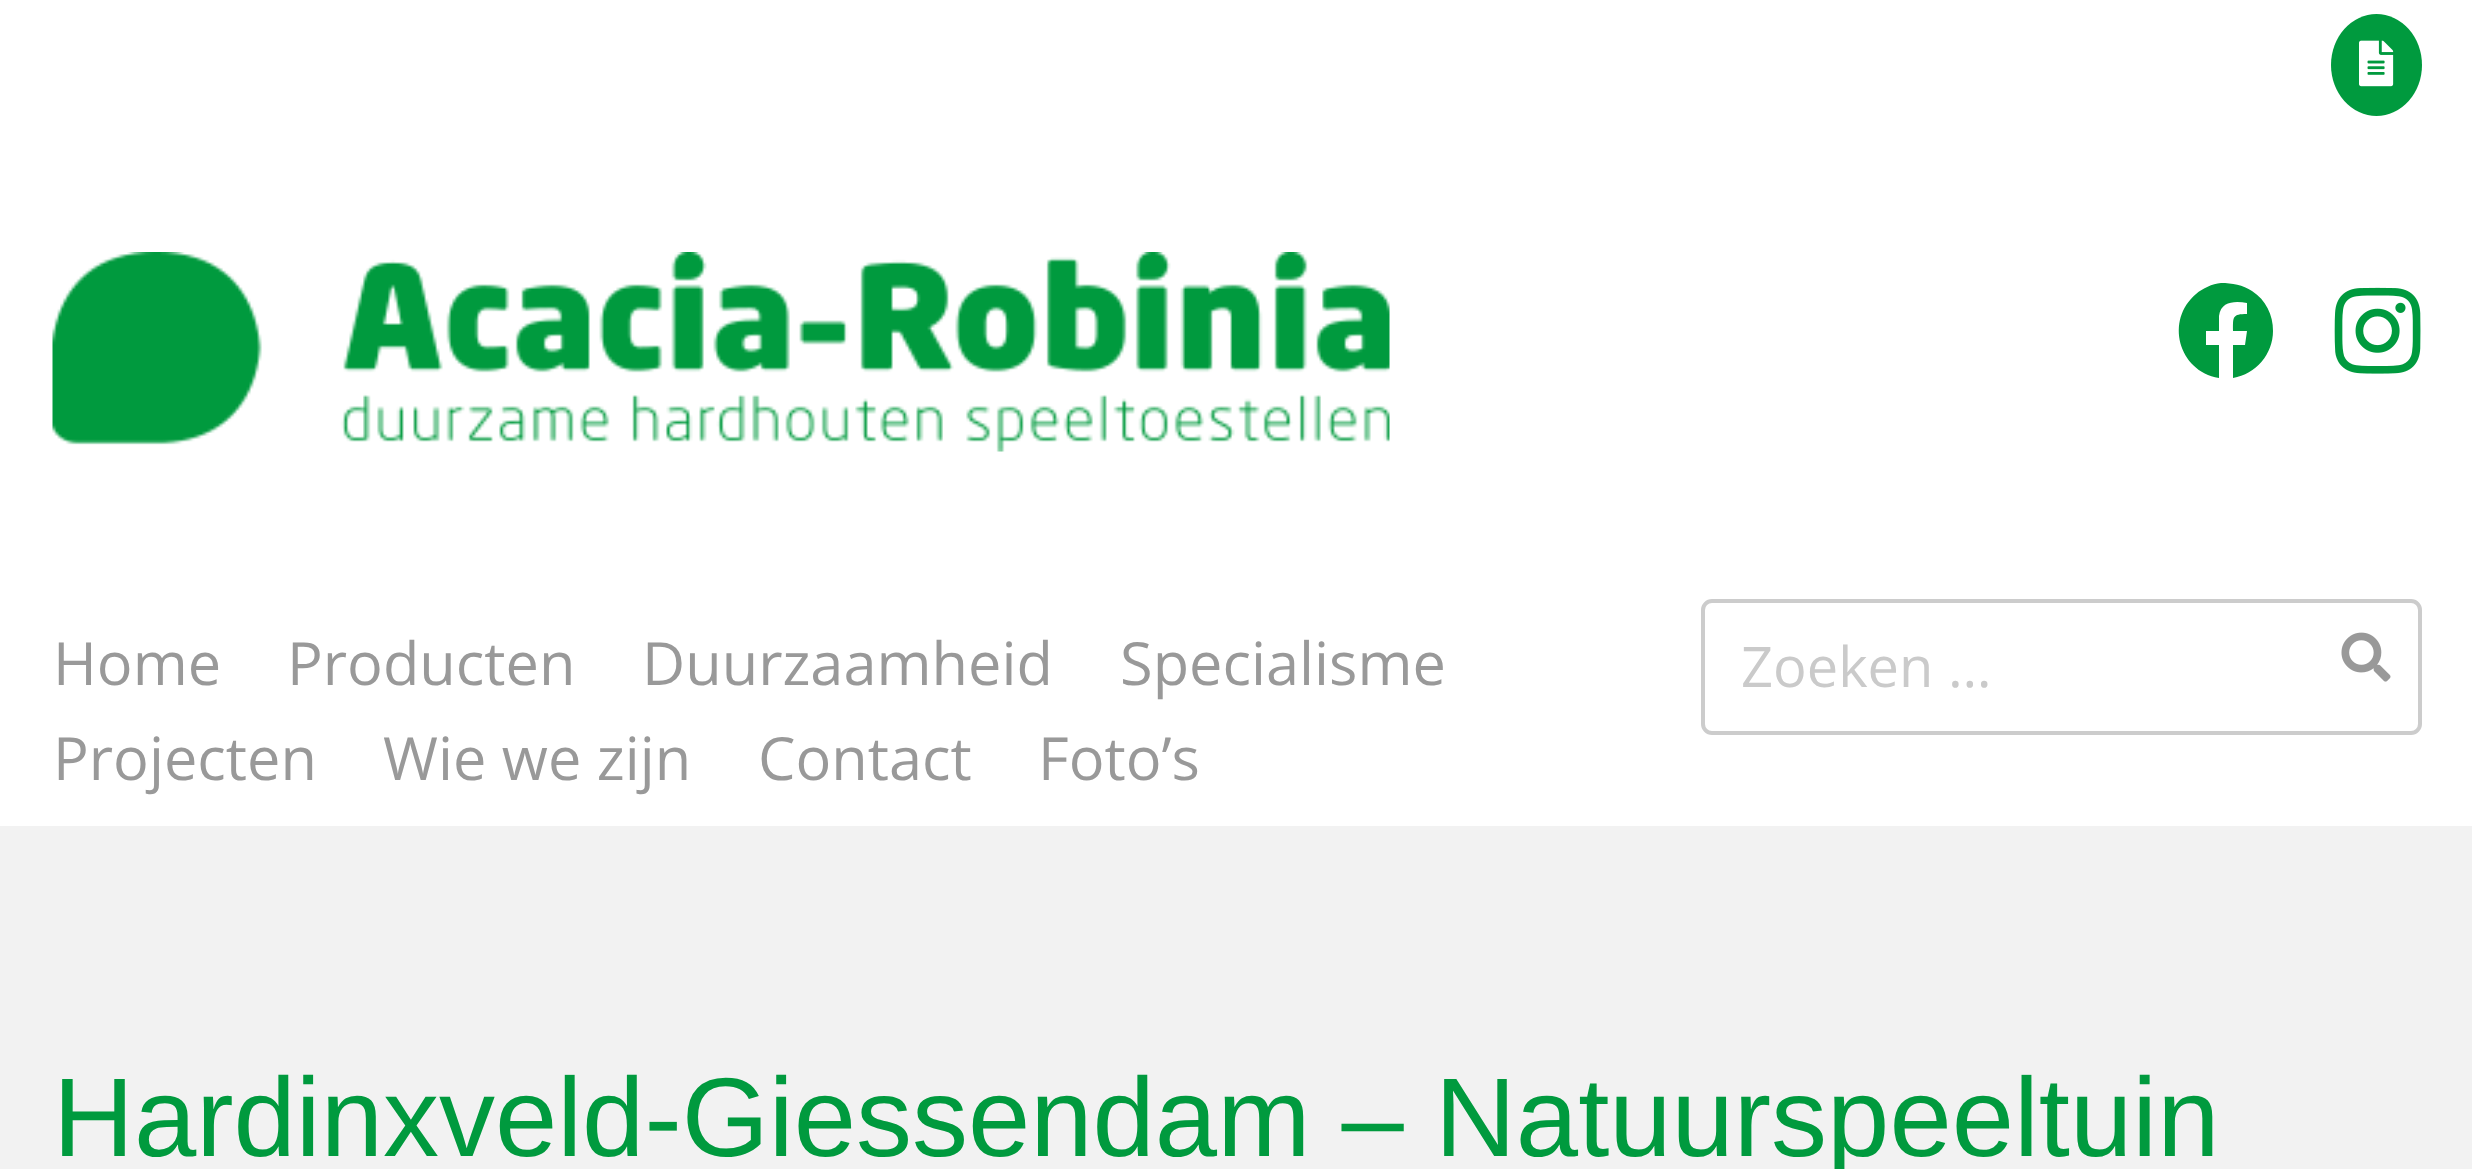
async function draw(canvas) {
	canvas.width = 2472;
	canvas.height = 1169;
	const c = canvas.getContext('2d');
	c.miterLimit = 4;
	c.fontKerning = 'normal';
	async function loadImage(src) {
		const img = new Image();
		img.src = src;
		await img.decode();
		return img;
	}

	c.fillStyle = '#fff';
	c.fillRect(0, 0, 2472, 1169);
	c.fillStyle = '#009a3e';
	c.beginPath();
	c.ellipse(2376.5, 65, 45.5, 51, 0, 0, 2 * Math.PI);
	c.fill();
	c.drawImage(await loadImage('img1.png'), 2359, 40, 35, 47);
	c.drawImage(await loadImage('img2.png'), 52, 252, 1338, 200);
	c.beginPath();
	c.moveTo(2273, 331);
	c.bezierCurveTo(2273, 354, 2256, 374, 2233, 378);
	c.lineTo(2233, 345);
	c.lineTo(2245, 345);
	c.lineTo(2247, 331);
	c.lineTo(2233, 331);
	c.bezierCurveTo(2233, 317, 2232, 314, 2247, 314);
	c.lineTo(2247, 303);
	c.bezierCurveTo(2235, 301, 2221, 301, 2219, 316);
	c.lineTo(2219, 331);
	c.lineTo(2206, 331);
	c.lineTo(2206, 345);
	c.lineTo(2219, 345);
	c.lineTo(2219, 378);
	c.bezierCurveTo(2178, 371, 2165, 320, 2196, 294);
	c.bezierCurveTo(2203, 288, 2212, 284, 2221, 283);
	c.bezierCurveTo(2232, 283, 2243, 285, 2252, 291);
	c.bezierCurveTo(2266, 300, 2273, 315, 2273, 331);
	c.closePath();
	c.fill();
	c.drawImage(await loadImage('img3.png'), 2334, 287, 87, 87);
	c.font = '59.5px Open Sans';
	c.fillStyle = '#999';
	for (const [text, x, y] of [
		['Home', 53, 685],
		['Producten', 287, 685],
		['Duurzaamheid', 642, 685],
		['Specialisme', 1120, 685],
		['Projecten', 53, 780],
		['Wie we zijn', 383, 780],
		['Contact', 758, 780],
		['Foto’s', 1038, 780],
	]) {
		c.fillText(text, x, y);
	}
	c.beginPath();
	c.roundRect(1703, 601, 717, 132, 9);
	c.strokeStyle = '#ccc';
	c.lineWidth = 4;
	c.stroke();
	c.font = '56px Open Sans';
	c.fillStyle = '#cacaca';
	c.fillText('Zoeken …', 1741, 687);
	c.drawImage(await loadImage('img4.png'), 2341, 632, 50, 50);
	c.fillStyle = '#f2f2f2';
	c.fillRect(0, 826, 2472, 343);
	c.font = '112px Liberation Sans';
	c.fillStyle = '#009a3e';
	c.fillText('Hardinxveld-Giessendam – Natuurspeeltuin', 53, 1156);
}

draw(document.querySelector('canvas'));
